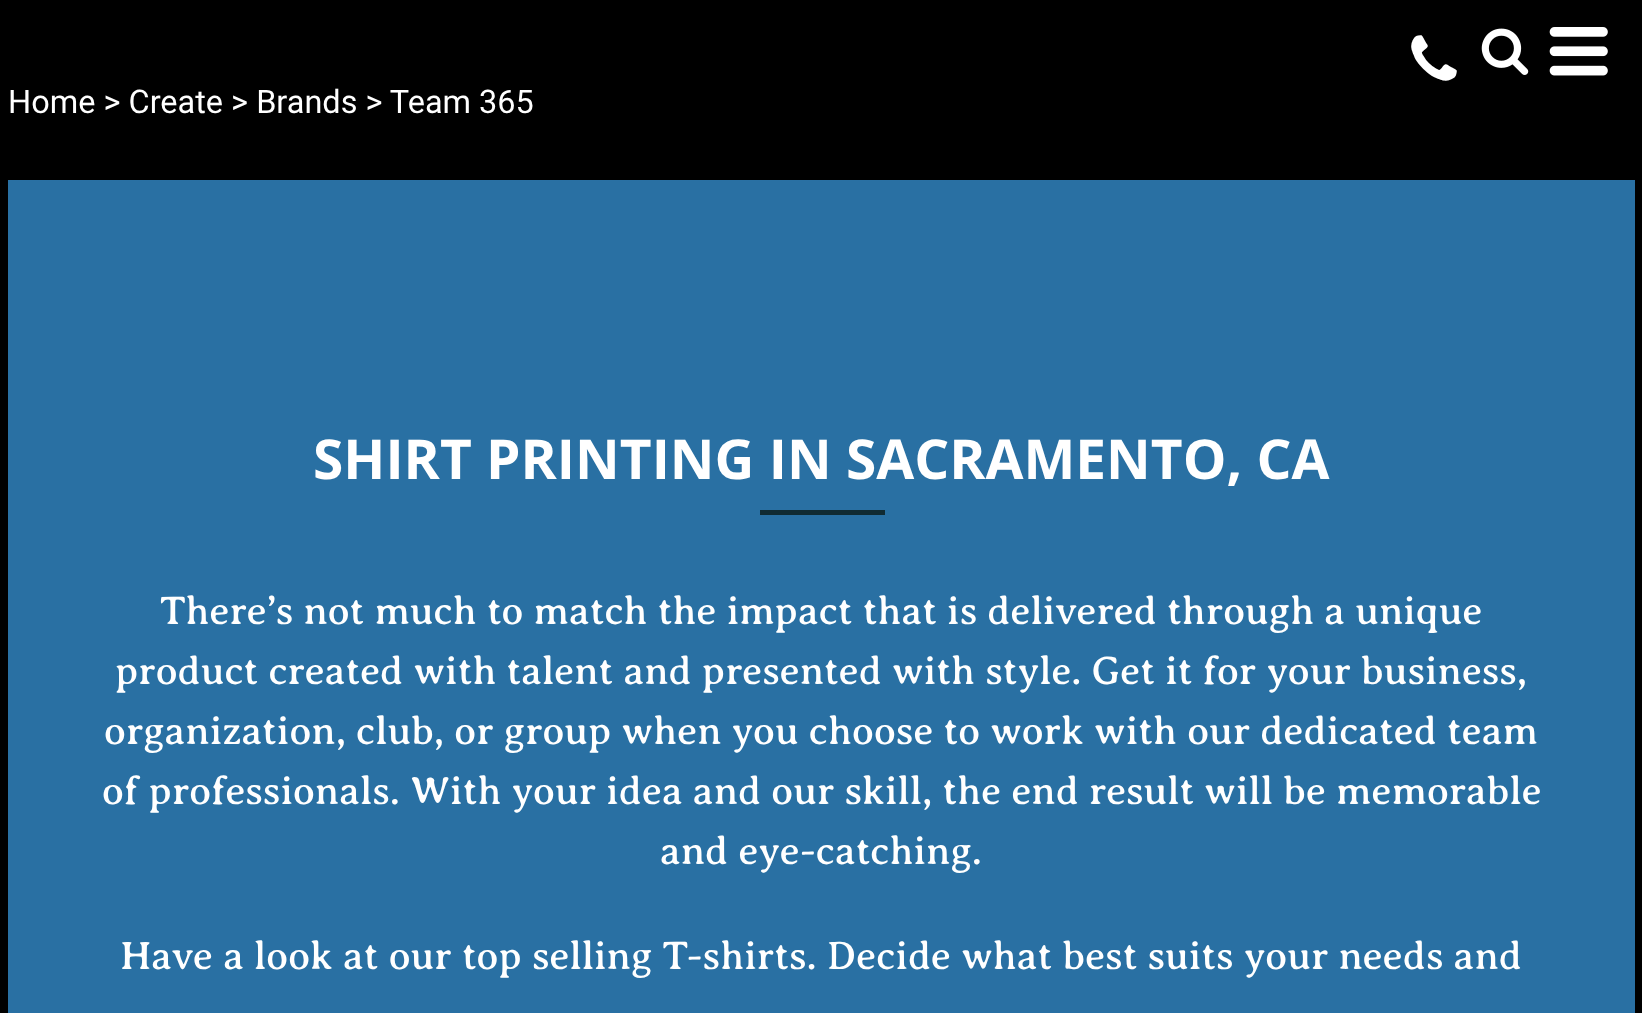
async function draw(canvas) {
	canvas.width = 1642;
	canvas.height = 1013;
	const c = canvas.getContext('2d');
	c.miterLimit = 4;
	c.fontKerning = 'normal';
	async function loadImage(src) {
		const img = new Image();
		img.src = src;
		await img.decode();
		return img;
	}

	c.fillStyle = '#000';
	c.fillRect(0, 0, 1642, 1013);
	c.font = '58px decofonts';
	c.fillStyle = '#fff';
	c.fillText(';', 1405, 89);
	c.drawImage(await loadImage('img1.png'), 1481, 28, 48, 47);
	c.drawImage(await loadImage('img2.png'), 1549, 27, 59, 49);
	c.font = '32.5px Roboto';
	c.fillText('Home > Create > Brands > Team 365', 8, 113);
	c.fillStyle = '#2970a3';
	c.fillRect(8, 180, 1627, 833);
	c.font = 'bold 55px Open Sans';
	c.fillStyle = '#fff';
	c.fillText('SHIRT PRINTING IN SACRAMENTO, CA', 313, 479);
	c.fillStyle = '#102b33';
	c.fillRect(760, 510, 125, 5);
	c.font = '40px Averia Serif Libre';
	c.fillStyle = '#fff';
	for (const [text, x, y] of [
		['There’s not much to match the impact that is delivered through a unique', 160, 624],
		['product created with talent and presented with style. Get it for your business,', 115, 684],
		['organization, club, or group when you choose to work with our dedicated team', 104, 744],
		['of professionals. With your idea and our skill, the end result will be memorable', 102, 804],
		['and eye-catching.', 660, 864],
		['Have a look at our top selling T-shirts. Decide what best suits your needs and', 120, 969],
	]) {
		c.fillText(text, x, y);
	}
}

draw(document.querySelector('canvas'));
